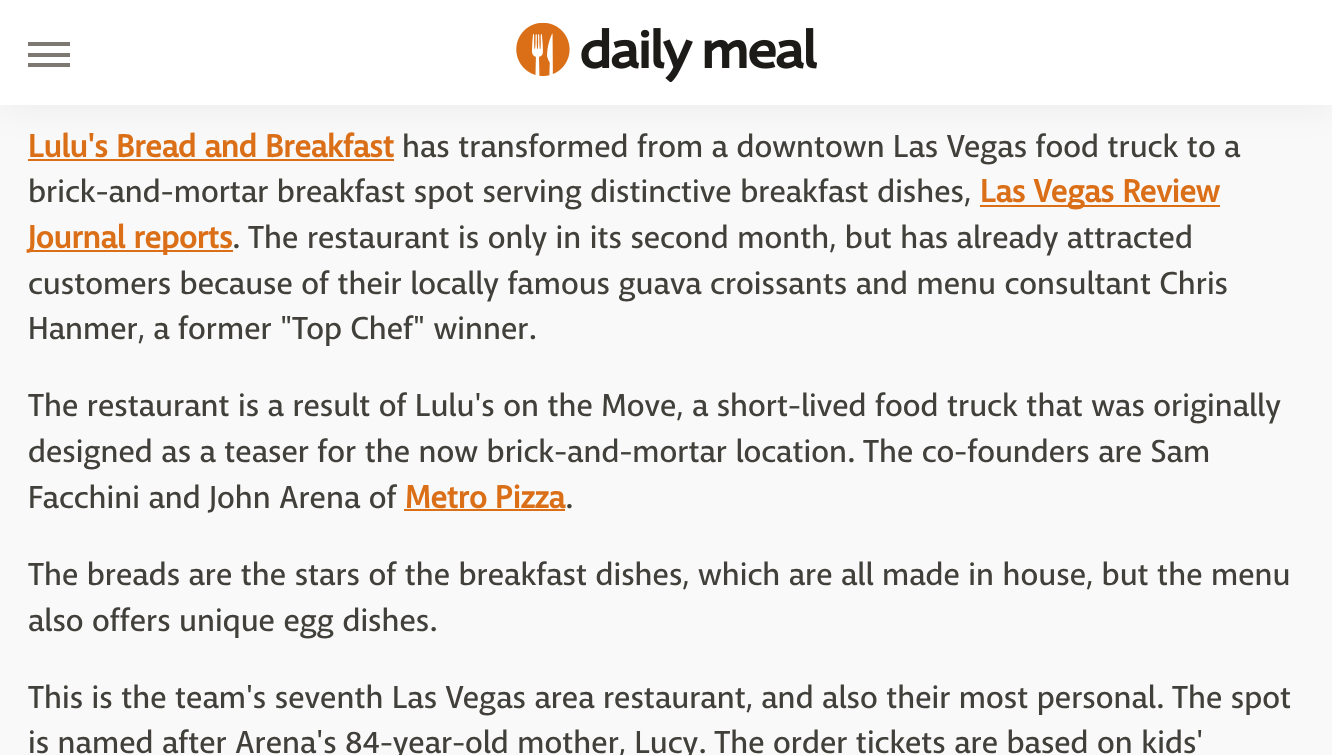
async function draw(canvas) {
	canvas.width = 1332;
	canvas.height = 755;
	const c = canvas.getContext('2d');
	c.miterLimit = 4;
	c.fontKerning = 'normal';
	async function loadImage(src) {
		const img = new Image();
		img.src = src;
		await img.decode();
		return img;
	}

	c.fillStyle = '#faf9f9';
	c.fillRect(0, 0, 1332, 755);
	c.fillStyle = '#da6f18';
	c.fillRect(28, 159, 366, 2);
	c.fillStyle = '#0000000d';
	c.filter = 'blur(17.5px)';
	c.beginPath();
	c.rect(0, 4, 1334, 105);
	c.fill();
	c.filter = 'none';
	for (const [x, y, w, h, color] of [
		[0, 0, 1332, 105, '#fff'],
		[28, 42, 42, 4, '#7e7873'],
		[28, 53, 42, 4, '#7e7873'],
		[28, 63, 42, 4, '#7e7873'],
	]) {
		c.fillStyle = color;
		c.fillRect(x, y, w, h);
	}
	c.drawImage(await loadImage('img1.png'), 516, 23, 301, 59);
	c.font = 'bold 31.5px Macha';
	c.fillStyle = '#da6f18';
	c.fillText('Lulu\'s Bread and Breakfast', 28, 157);
	c.font = '500 31.5px Macha';
	c.fillStyle = '#41403b';
	c.fillText('has transformed from a downtown Las Vegas food truck to a', 402, 157);
	c.fillText('brick-and-mortar breakfast spot serving distinctive breakfast dishes,', 28, 202);
	c.fillStyle = '#da6f18';
	c.fillRect(980, 205, 240, 2);
	c.font = 'bold 31.5px Macha';
	c.fillText('Las Vegas Review', 980, 202);
	c.fillRect(28, 250, 205, 2);
	c.fillText('Journal reports', 28, 248);
	c.font = '500 31.5px Macha';
	c.fillStyle = '#41403b';
	for (const [text, x, y] of [
		['. The restaurant is only in its second month, but has already attracted', 232, 248],
		['customers because of their locally famous guava croissants and menu consultant Chris', 28, 294],
		['Hanmer, a former "Top Chef" winner.', 28, 339],
		['The restaurant is a result of Lulu\'s on the Move, a short-lived food truck that was originally', 28, 416],
		['designed as a teaser for the now brick-and-mortar location. The co-founders are Sam', 28, 462],
		['Facchini and John Arena of', 28, 508],
	]) {
		c.fillText(text, x, y);
	}
	c.font = 'bold 31.5px Macha';
	c.fillStyle = '#da6f18';
	c.fillText('Metro Pizza', 405, 508);
	c.fillRect(404, 509, 161, 2);
	c.font = '500 31.5px Macha';
	c.fillStyle = '#41403b';
	for (const [text, x, y] of [
		['.', 565, 508],
		['The breads are the stars of the breakfast dishes, which are all made in house, but the menu', 28, 585],
		['also offers unique egg dishes.', 28, 631],
		['This is the team\'s seventh Las Vegas area restaurant, and also their most personal. The spot', 28, 708],
		['is named after Arena\'s 84-year-old mother, Lucy. The order tickets are based on kids\'', 28, 753],
	]) {
		c.fillText(text, x, y);
	}
}

draw(document.querySelector('canvas'));
